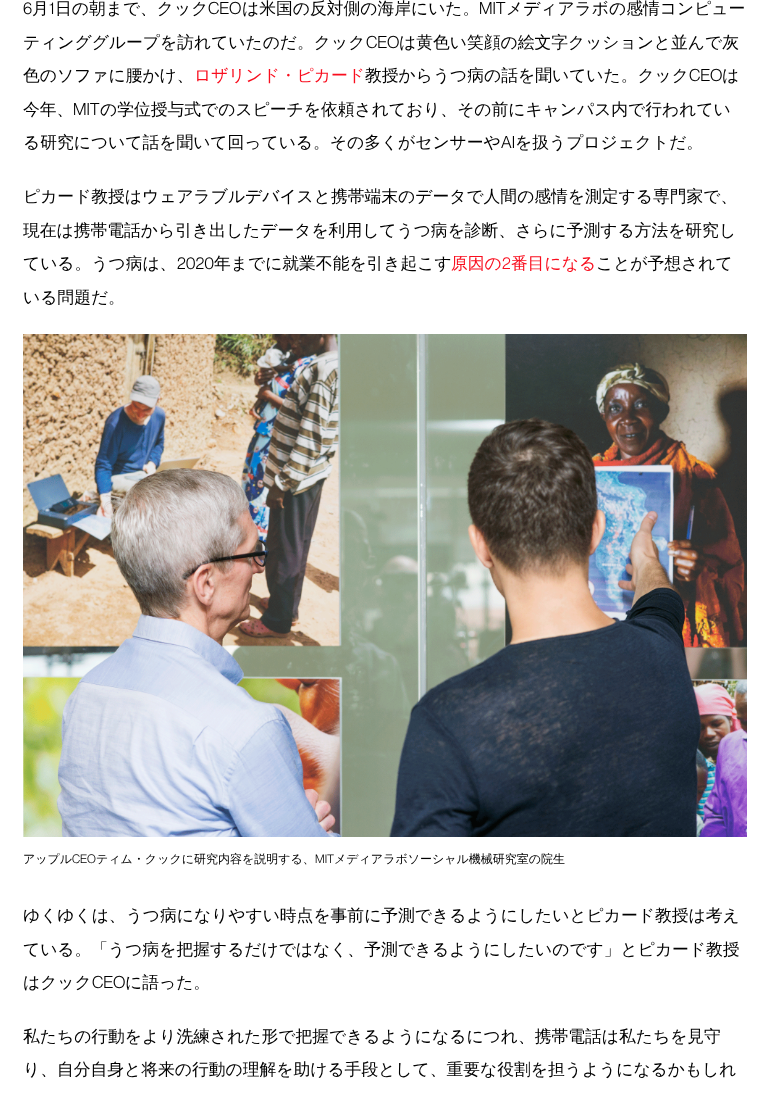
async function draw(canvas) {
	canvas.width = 770;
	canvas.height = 1102;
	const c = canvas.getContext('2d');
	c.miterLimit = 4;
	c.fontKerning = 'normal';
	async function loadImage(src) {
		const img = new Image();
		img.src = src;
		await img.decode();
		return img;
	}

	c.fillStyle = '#fff';
	c.fillRect(0, 0, 770, 1102);
	c.font = '16.8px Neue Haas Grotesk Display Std';
	c.fillStyle = '#000';
	c.fillText('6', 23, 14);
	c.font = '500 16.8px WenQuanYi Zen Hei';
	c.fillText('月', 32, 14);
	c.font = '16.8px Neue Haas Grotesk Display Std';
	c.fillText('1', 49, 14);
	c.font = '500 16.8px WenQuanYi Zen Hei';
	c.fillText('日の朝まで、クック', 55, 14);
	c.font = '16.8px Neue Haas Grotesk Display Std';
	c.fillText('CEO', 208, 14);
	c.font = '500 16.8px WenQuanYi Zen Hei';
	c.fillText('は米国の反対側の海岸にいた。', 242, 14);
	c.font = '16.8px Neue Haas Grotesk Display Std';
	c.fillText('MIT', 479, 14);
	c.font = '500 16.8px WenQuanYi Zen Hei';
	c.fillText('メディアラボの感情コンピュー', 506, 14);
	c.fillText('ティンググループを訪れていたのだ。クック', 23, 48);
	c.font = '16.8px Neue Haas Grotesk Display Std';
	c.fillText('CEO', 366, 48);
	c.font = '500 16.8px WenQuanYi Zen Hei';
	c.fillText('は黄色い笑顔の絵文字クッションと並んで灰', 399, 48);
	c.fillText('色のソファに腰かけ、', 23, 81);
	c.fillStyle = '#f90e1e';
	c.fillText('ロザリンド・ピカード', 194, 81);
	c.fillStyle = '#000';
	c.fillText('教授からうつ病の話を聞いていた。クック', 365, 81);
	c.font = '16.8px Neue Haas Grotesk Display Std';
	c.fillText('CEO', 689, 81);
	c.font = '500 16.8px WenQuanYi Zen Hei';
	c.fillText('は', 722, 81);
	c.fillText('今年、', 23, 115);
	c.font = '16.8px Neue Haas Grotesk Display Std';
	c.fillText('MIT', 73, 115);
	c.font = '500 16.8px WenQuanYi Zen Hei';
	c.fillText('の学位授与式でのスピーチを依頼されており、その前にキャンパス内で行われてい', 100, 115);
	c.fillText('る研究について話を聞いて回っている。その多くがセンサーや', 23, 148);
	c.font = '16.8px Neue Haas Grotesk Display Std';
	c.fillText('AI', 501, 148);
	c.font = '500 16.8px WenQuanYi Zen Hei';
	for (const [text, x, y] of [
		['を扱うプロジェクトだ。', 515, 148],
		['ピカード教授はウェアラブルデバイスと携帯端末のデータで人間の感情を測定する専門家で、', 23, 202],
		['現在は携帯電話から引き出したデータを利用してうつ病を診断、さらに予測する方法を研究し', 23, 236],
		['ている。うつ病は、', 23, 269],
	]) {
		c.fillText(text, x, y);
	}
	c.font = '16.8px Neue Haas Grotesk Display Std';
	c.fillText('2020', 177, 269);
	c.font = '500 16.8px WenQuanYi Zen Hei';
	c.fillText('年までに就業不能を引き起こす', 214, 269);
	c.fillStyle = '#f90e1e';
	c.fillText('原因の', 451, 269);
	c.font = '16.8px Neue Haas Grotesk Display Std';
	c.fillText('2', 502, 269);
	c.font = '500 16.8px WenQuanYi Zen Hei';
	c.fillText('番目になる', 511, 269);
	c.fillStyle = '#000';
	c.fillText('ことが予想されて', 596, 269);
	c.fillText('いる問題だ。', 23, 303);
	c.drawImage(await loadImage('img1.png'), 23, 334, 724, 503);
	c.font = '500 12px WenQuanYi Zen Hei';
	c.fillText('アップル', 23, 863);
	c.font = '12px Neue Haas Grotesk Display Std';
	c.fillText('CEO', 72, 863);
	c.font = '500 12px WenQuanYi Zen Hei';
	c.fillText('ティム・クックに研究内容を説明する、', 96, 863);
	c.font = '12px Neue Haas Grotesk Display Std';
	c.fillText('MIT', 315, 863);
	c.font = '500 12px WenQuanYi Zen Hei';
	c.fillText('メディアラボソーシャル機械研究室の院生', 334, 863);
	c.font = '500 16.8px WenQuanYi Zen Hei';
	for (const [text, x, y] of [
		['ゆくゆくは、うつ病になりやすい時点を事前に予測できるようにしたいとピカード教授は考え', 23, 921],
		['ている。「うつ病を把握するだけではなく、予測できるようにしたいのです」とピカード教授', 23, 955],
		['はクック', 23, 988],
	]) {
		c.fillText(text, x, y);
	}
	c.font = '16.8px Neue Haas Grotesk Display Std';
	c.fillText('CEO', 92, 988);
	c.font = '500 16.8px WenQuanYi Zen Hei';
	for (const [text, x, y] of [
		['に語った。', 125, 988],
		['私たちの行動をより洗練された形で把握できるようになるにつれ、携帯電話は私たちを見守', 23, 1042],
		['り、自分自身と将来の行動の理解を助ける手段として、重要な役割を担うようになるかもしれ', 23, 1075],
	]) {
		c.fillText(text, x, y);
	}
}

draw(document.querySelector('canvas'));
